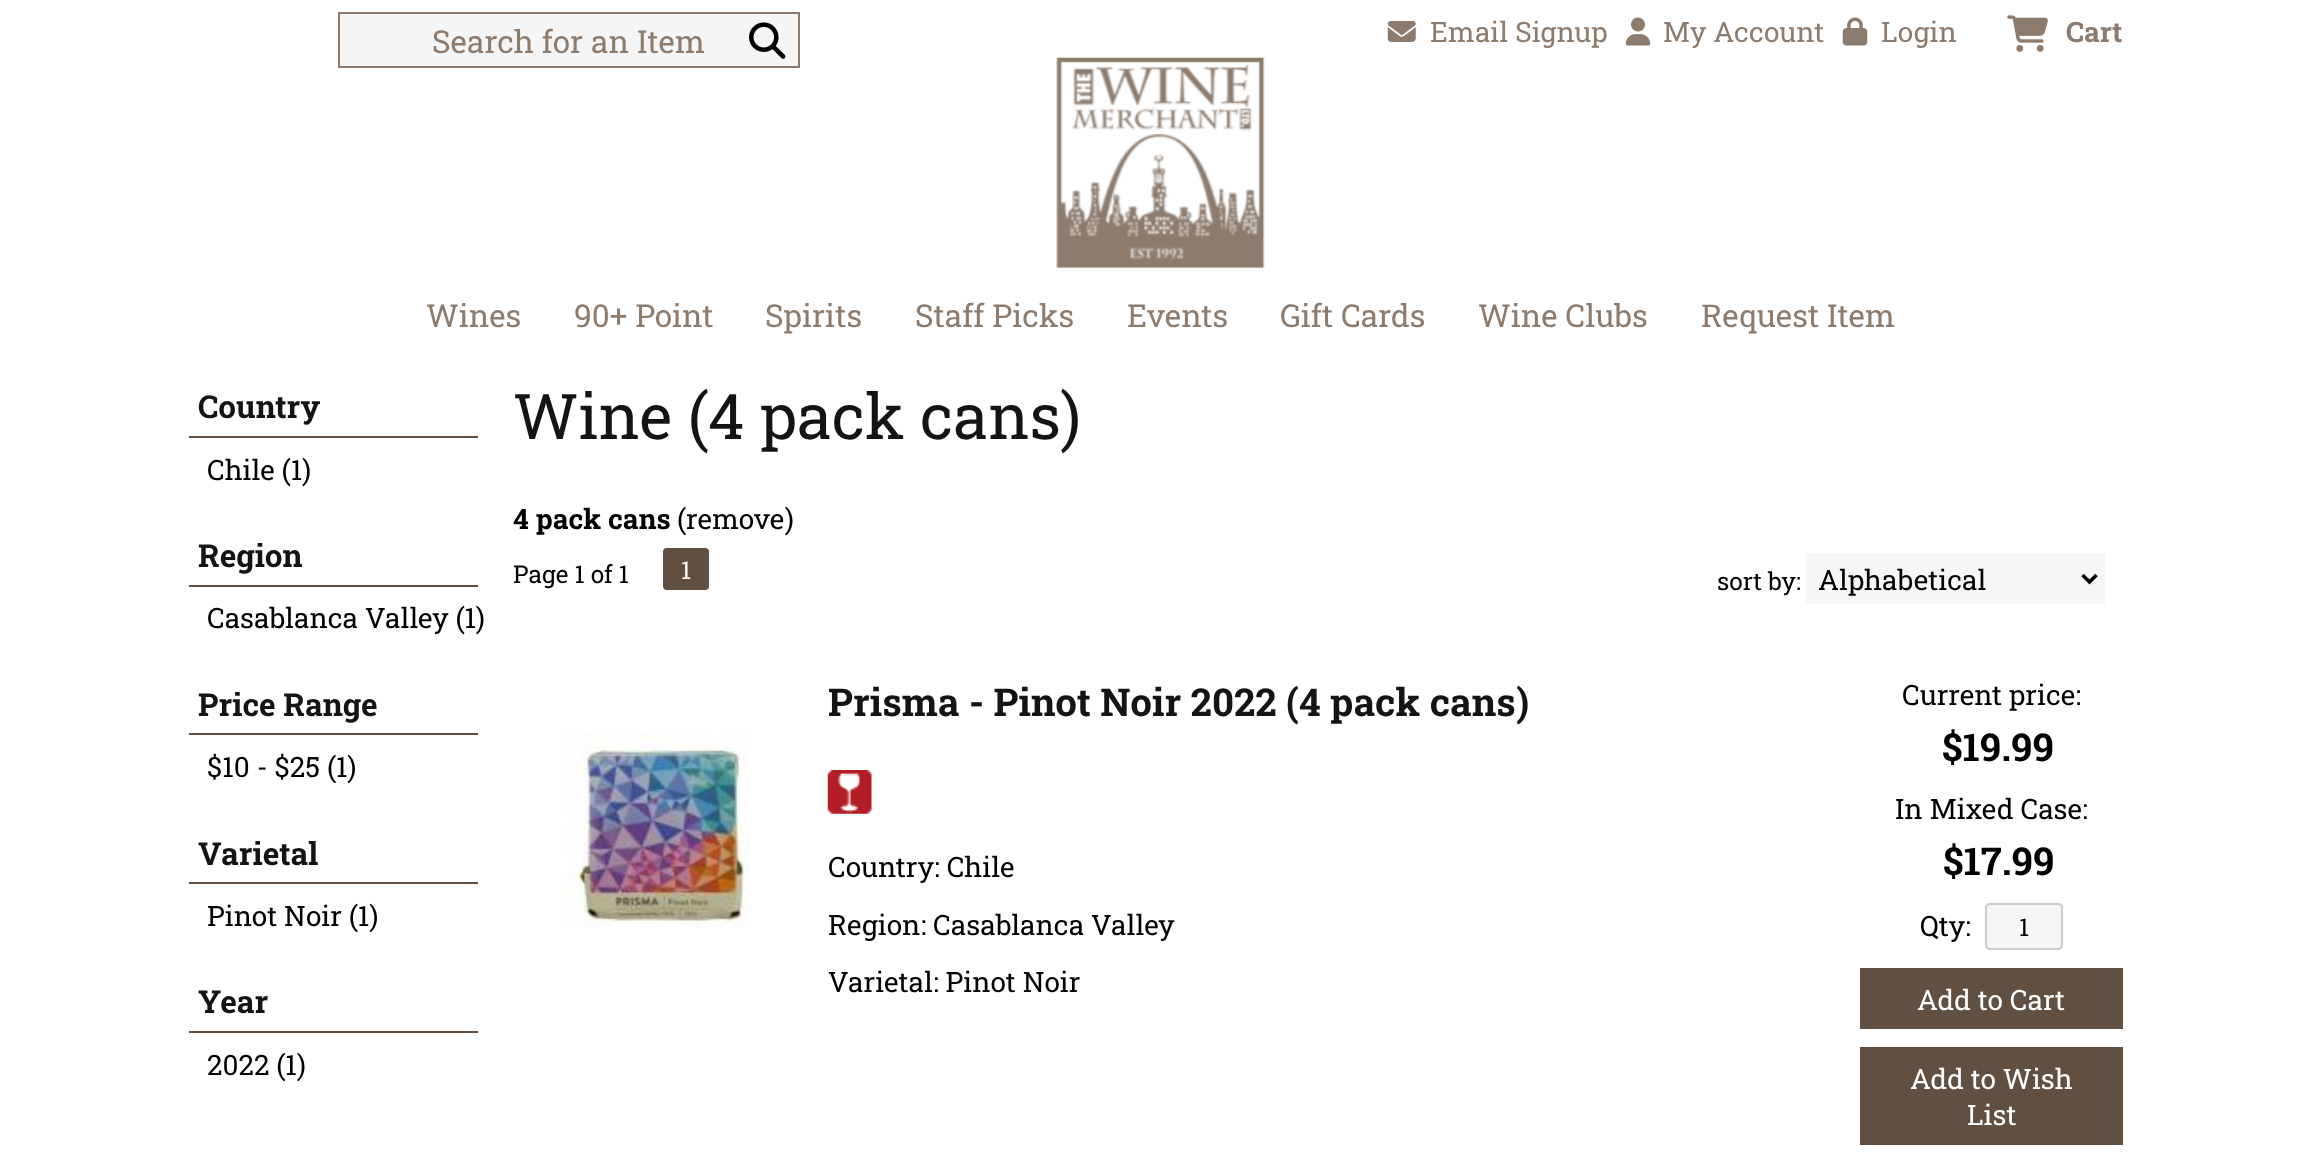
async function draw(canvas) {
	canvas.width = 2319;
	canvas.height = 1152;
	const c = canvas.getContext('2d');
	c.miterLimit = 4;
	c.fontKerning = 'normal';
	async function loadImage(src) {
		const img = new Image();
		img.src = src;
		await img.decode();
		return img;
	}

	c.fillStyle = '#fff';
	c.fillRect(0, 0, 2319, 1152);
	c.fillStyle = '#f5f5f5';
	c.beginPath();
	c.rect(339, 13, 460, 54);
	c.fill();
	c.strokeStyle = '#8d7b6d';
	c.lineWidth = 2;
	c.stroke();
	c.font = '31.5px Roboto Slab';
	c.fillStyle = '#8d7b6d';
	c.fillText('Search for an Item', 432, 53);
	c.drawImage(await loadImage('img1.png'), 749, 22, 37, 37);
	c.drawImage(await loadImage('img2.png'), 1387, 21, 29, 21);
	c.font = '28px Roboto Slab';
	c.fillText('Email Signup', 1430, 42);
	c.drawImage(await loadImage('img3.png'), 1625, 17, 26, 29);
	c.fillText('My Account', 1663, 42);
	c.drawImage(await loadImage('img4.png'), 1842, 17, 26, 29);
	c.fillText('Login', 1881, 42);
	c.drawImage(await loadImage('img5.png'), 2007, 15, 41, 37);
	c.font = 'bold 28px Roboto Slab';
	c.fillText('Cart', 2066, 42);
	c.drawImage(await loadImage('img6.png'), 1056, 57, 209, 211);
	c.font = '31.5px Roboto Slab';
	for (const [text, x, y] of [
		['Wines', 426, 327],
		['90+ Point', 574, 327],
		['Spirits', 765, 327],
		['Staff Picks', 915, 327],
		['Events', 1127, 327],
		['Gift Cards', 1280, 327],
		['Wine Clubs', 1478, 327],
		['Request Item', 1701, 327],
	]) {
		c.fillText(text, x, y);
	}
	c.fillStyle = '#614f42';
	c.fillRect(189, 436, 289, 2);
	c.font = 'bold 31.5px Roboto Slab';
	c.fillStyle = '#141414';
	c.fillText('Country', 198, 418);
	c.font = '28px Roboto Slab';
	c.fillStyle = '#000';
	c.fillText('Chile (1)', 207, 480);
	c.fillStyle = '#614f42';
	c.fillRect(189, 585, 289, 2);
	c.font = 'bold 31.5px Roboto Slab';
	c.fillStyle = '#141414';
	c.fillText('Region', 198, 567);
	c.font = '28px Roboto Slab';
	c.fillStyle = '#000';
	c.fillText('Casablanca Valley (1)', 207, 628);
	c.fillStyle = '#614f42';
	c.fillRect(189, 733, 289, 2);
	c.font = 'bold 31.5px Roboto Slab';
	c.fillStyle = '#141414';
	c.fillText('Price Range', 198, 716);
	c.font = '28px Roboto Slab';
	c.fillStyle = '#000';
	c.fillText('$10 - $25 (1)', 207, 777);
	c.fillStyle = '#614f42';
	c.fillRect(189, 882, 289, 2);
	c.font = 'bold 31.5px Roboto Slab';
	c.fillStyle = '#141414';
	c.fillText('Varietal', 198, 865);
	c.font = '28px Roboto Slab';
	c.fillStyle = '#000';
	c.fillText('Pinot Noir (1)', 207, 926);
	c.fillStyle = '#614f42';
	c.fillRect(189, 1031, 289, 2);
	c.font = 'bold 31.5px Roboto Slab';
	c.fillStyle = '#141414';
	c.fillText('Year', 198, 1013);
	c.font = '28px Roboto Slab';
	c.fillStyle = '#000';
	c.fillText('2022 (1)', 207, 1075);
	c.font = '63px Roboto Slab';
	c.fillStyle = '#141414';
	c.fillText('Wine (4 pack cans)', 513, 439);
	c.font = 'bold 28px Roboto Slab';
	c.fillStyle = '#000';
	c.fillText('4 pack cans', 513, 529);
	c.font = '28px Roboto Slab';
	c.fillText('(remove', 677, 529);
	c.fillText(')', 785, 529);
	c.font = '24.5px Roboto Slab';
	c.fillText('Page 1 of 1', 513, 583);
	c.fillStyle = '#614f42';
	c.beginPath();
	c.roundRect(663, 548, 46, 42, 4);
	c.fill();
	c.fillStyle = '#fff';
	c.fillText('1', 681, 579);
	c.fillStyle = '#000';
	c.fillText('sort by:', 1717, 590);
	c.fillStyle = '#f6f6f6';
	c.fillRect(1806, 553, 299, 51);
	c.beginPath();
	c.moveTo(2082.5, 575);
	c.lineTo(2089.5, 582);
	c.lineTo(2096.5, 575);
	c.strokeStyle = '#000';
	c.lineWidth = 3.5;
	c.stroke();
	c.font = '28px Roboto Slab';
	c.fillStyle = '#000';
	c.fillText('Alphabetical', 1818, 590);
	c.drawImage(await loadImage('img7.png'), 565, 732, 186, 196);
	c.font = 'bold 38.5px Roboto Slab';
	c.fillStyle = '#141414';
	c.fillText('Prisma - Pinot Noir 2022 (4 pack cans)', 828, 716);
	c.drawImage(await loadImage('img8.png'), 827, 770, 45, 44);
	c.font = '28px Roboto Slab';
	c.fillStyle = '#000';
	for (const [text, x, y] of [
		['Country: Chile', 828, 877],
		['Region: Casablanca Valley', 828, 935],
		['Varietal: Pinot Noir', 828, 992],
		['Current price:', 1902, 705],
	]) {
		c.fillText(text, x, y);
	}
	c.font = 'bold 38.5px Roboto Slab';
	c.fillText('$19.99', 1942, 761);
	c.font = '28px Roboto Slab';
	c.fillText('In Mixed Case:', 1895, 819);
	c.font = 'bold 38.5px Roboto Slab';
	c.fillText('$17.99', 1943, 875);
	c.font = '28px Roboto Slab';
	c.fillText('Qty:', 1920, 936);
	c.fillStyle = '#f6f6f6';
	c.beginPath();
	c.roundRect(1986, 904, 76, 45, 4);
	c.fill();
	c.strokeStyle = '#ccc';
	c.lineWidth = 2;
	c.stroke();
	c.font = '24.5px Roboto Slab';
	c.fillStyle = '#000';
	c.fillText('1', 2019, 936);
	c.fillStyle = '#614f42';
	c.fillRect(1860, 968, 263, 61);
	c.font = '28px Roboto Slab';
	c.fillStyle = '#fff';
	c.fillText('Add to Cart', 1917, 1010);
	c.fillStyle = '#614f42';
	c.fillRect(1860, 1047, 263, 98);
	c.fillStyle = '#fff';
	c.fillText('Add to Wish', 1910, 1089);
	c.fillText('List', 1967, 1125);
}

draw(document.querySelector('canvas'));
